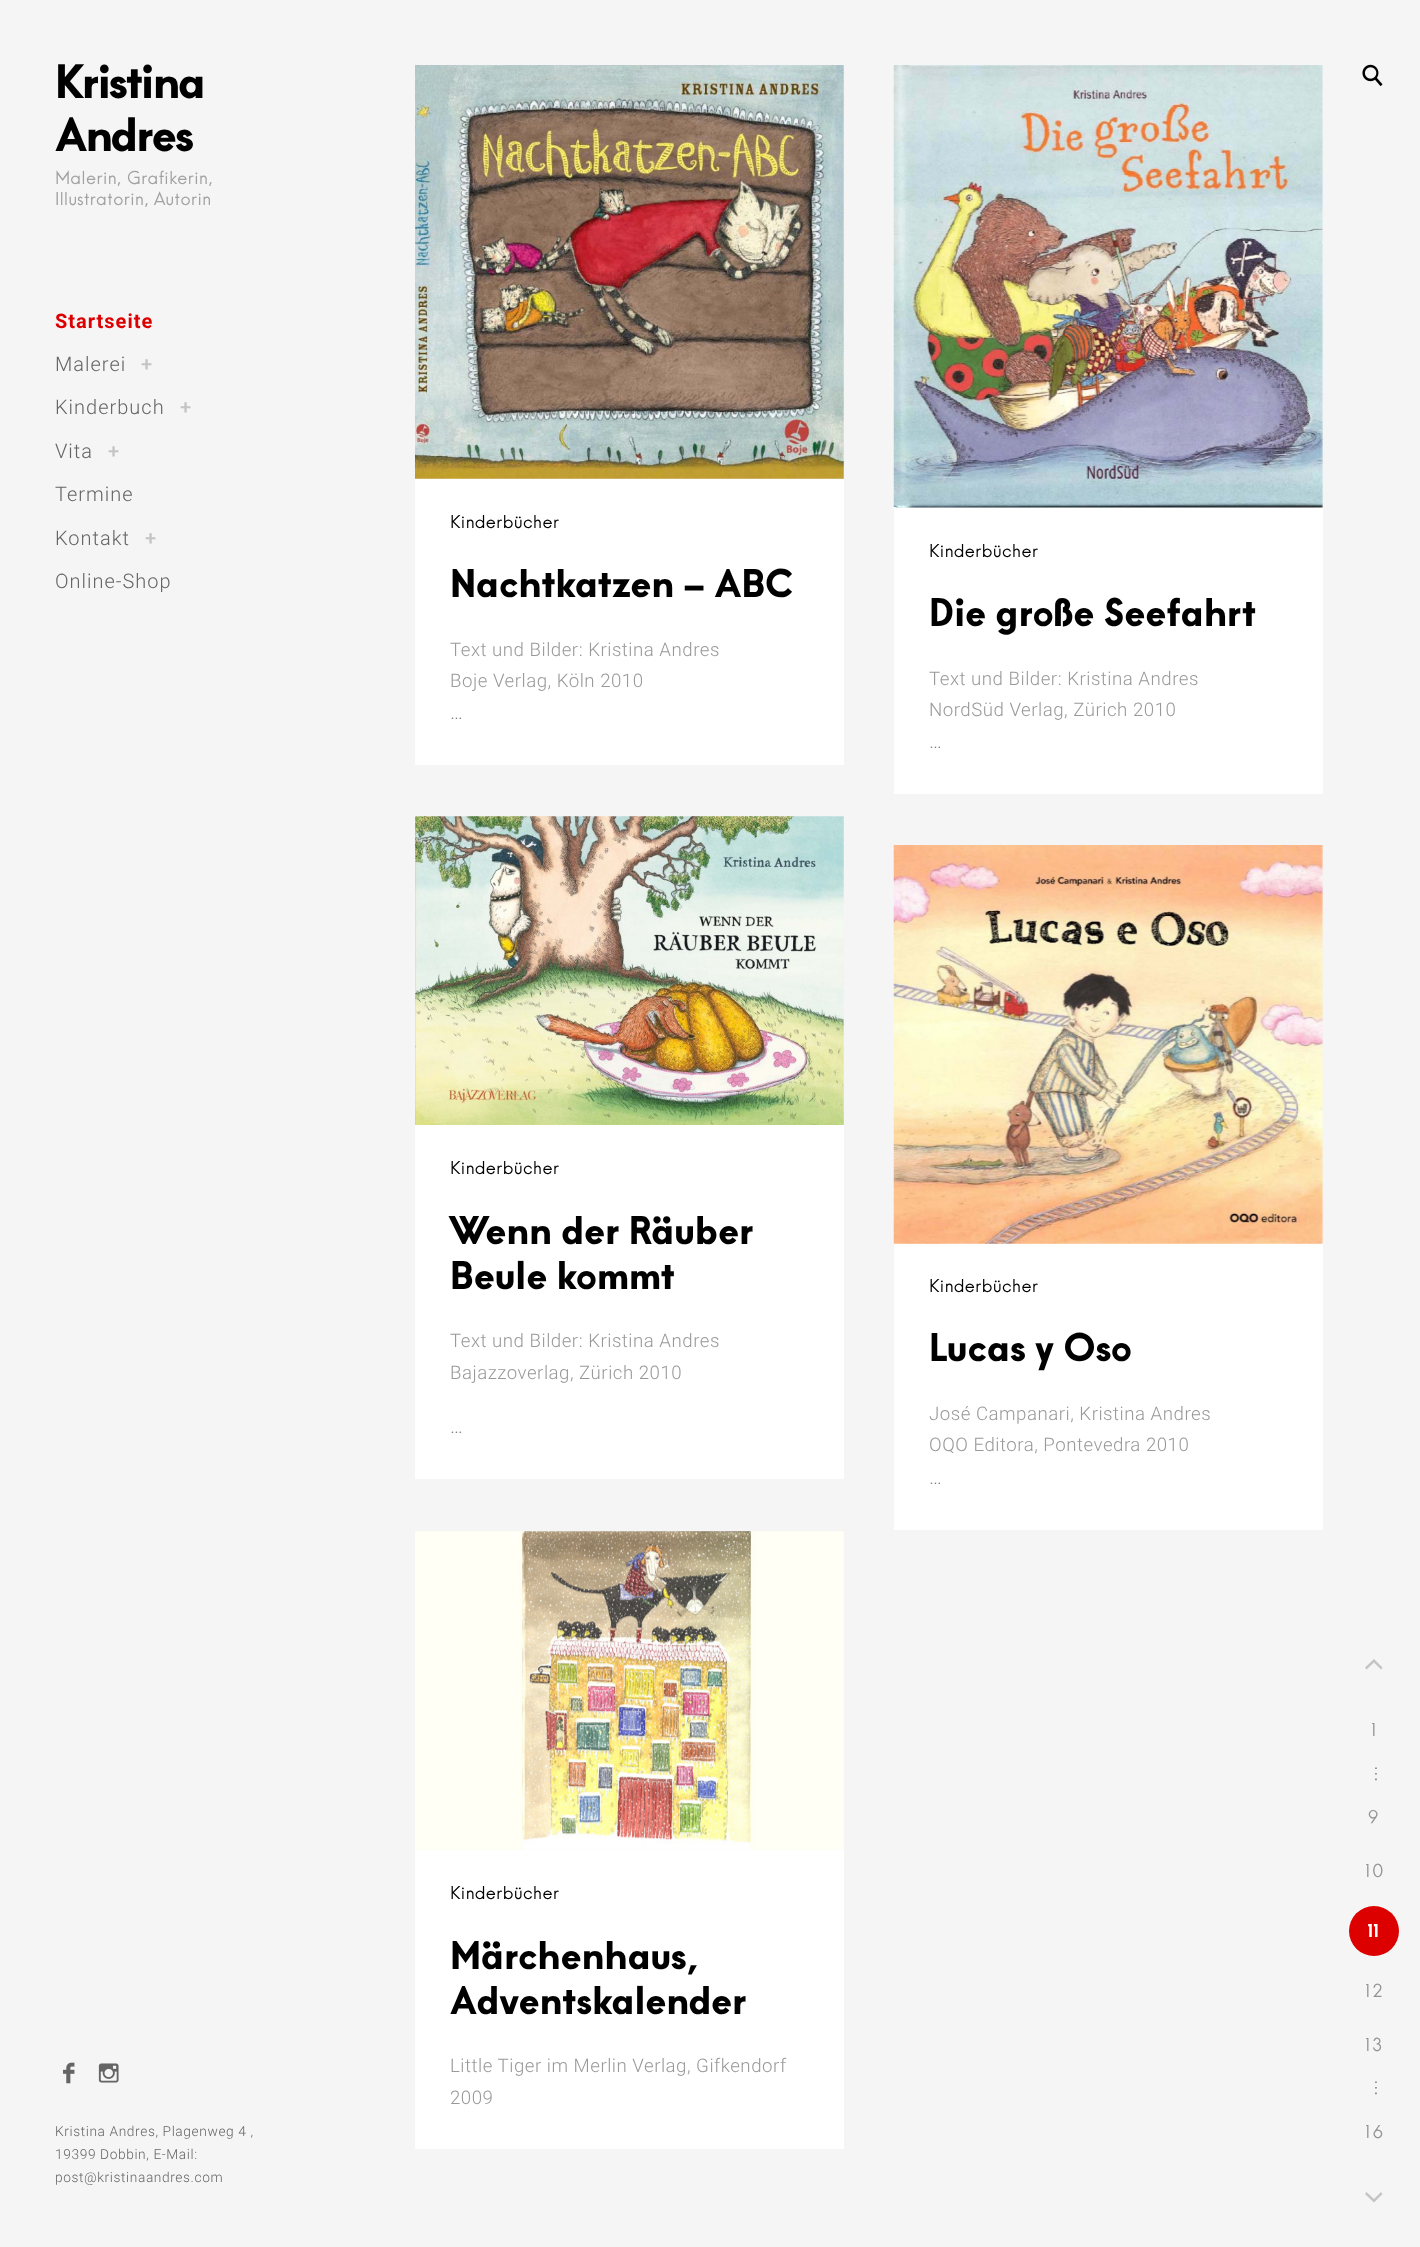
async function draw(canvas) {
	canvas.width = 1420;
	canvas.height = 2247;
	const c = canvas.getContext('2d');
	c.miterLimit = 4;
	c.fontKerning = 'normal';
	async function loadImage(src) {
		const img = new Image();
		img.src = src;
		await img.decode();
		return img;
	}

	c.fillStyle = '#f5f5f5';
	c.fillRect(0, 0, 1420, 2247);
	c.letterSpacing = '-1.75px';
	c.font = '900 45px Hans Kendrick';
	c.fillStyle = '#000';
	c.fillText('Kristina', 55, 98);
	c.fillText('Andres', 55, 151);
	c.letterSpacing = '0px';
	c.font = '17.5px Hans Kendrick';
	c.fillStyle = '#a1a1a1';
	c.fillText('Malerin, Grafikerin,', 55, 184);
	c.fillText('Illustratorin, Autorin', 55, 205);
	c.letterSpacing = '1px';
	c.font = 'bold 20px Roboto';
	c.fillStyle = '#d00';
	c.fillText('Startseite', 55, 328);
	c.font = '300 20px Roboto';
	c.fillStyle = '#656565';
	c.fillText('Malerei', 55, 371);
	c.font = '500 20px Roboto';
	c.fillStyle = '#c4c4c4';
	c.fillText('+', 141, 371);
	c.font = '300 20px Roboto';
	c.fillStyle = '#656565';
	c.fillText('Kinderbuch', 55, 414);
	c.font = '500 20px Roboto';
	c.fillStyle = '#c4c4c4';
	c.fillText('+', 180, 414);
	c.font = '300 20px Roboto';
	c.fillStyle = '#656565';
	c.fillText('Vita', 55, 458);
	c.font = '500 20px Roboto';
	c.fillStyle = '#c4c4c4';
	c.fillText('+', 108, 458);
	c.font = '300 20px Roboto';
	c.fillStyle = '#656565';
	c.fillText('Termine', 55, 501);
	c.fillText('Kontakt', 55, 545);
	c.font = '500 20px Roboto';
	c.fillStyle = '#c4c4c4';
	c.fillText('+', 145, 545);
	c.font = '300 20px Roboto';
	c.fillStyle = '#656565';
	c.fillText('Online-Shop', 55, 588);
	c.drawImage(await loadImage('img1.png'), 1362, 64, 21, 23);
	c.drawImage(await loadImage('img2.png'), 415, 65, 429, 414);
	c.fillStyle = '#fff';
	c.fillRect(415, 479, 429, 286);
	c.letterSpacing = '0px';
	c.font = '17.5px Hans Kendrick';
	c.fillStyle = '#000';
	c.fillText('Kinderbücher', 450, 528);
	c.font = '900 37.5px Hans Kendrick';
	c.fillText('Nachtkatzen – ABC', 450, 597);
	c.letterSpacing = '0.5px';
	c.font = '300 18.7px Roboto';
	c.fillStyle = '#999';
	c.fillText('Text und Bilder: Kristina Andres', 450, 656);
	c.fillText('Boje Verlag, Köln 2010', 450, 687);
	c.font = '300 20px Roboto';
	c.fillStyle = '#808080';
	c.fillText('…', 450, 719);
	c.drawImage(await loadImage('img3.png'), 893, 65, 430, 443);
	c.fillStyle = '#fff';
	c.fillRect(894, 508, 429, 286);
	c.letterSpacing = '0px';
	c.font = '17.5px Hans Kendrick';
	c.fillStyle = '#000';
	c.fillText('Kinderbücher', 929, 557);
	c.font = '900 37.5px Hans Kendrick';
	c.fillText('Die große Seefahrt', 929, 626);
	c.letterSpacing = '0.5px';
	c.font = '300 18.7px Roboto';
	c.fillStyle = '#999';
	c.fillText('Text und Bilder: Kristina Andres', 929, 685);
	c.fillText('NordSüd Verlag, Zürich 2010', 929, 716);
	c.font = '300 20px Roboto';
	c.fillStyle = '#808080';
	c.fillText('…', 929, 748);
	c.drawImage(await loadImage('img4.png'), 415, 816, 429, 309);
	c.fillStyle = '#fff';
	c.fillRect(415, 1125, 429, 354);
	c.letterSpacing = '0px';
	c.font = '17.5px Hans Kendrick';
	c.fillStyle = '#000';
	c.fillText('Kinderbücher', 450, 1174);
	c.font = '900 37.5px Hans Kendrick';
	c.fillText('Wenn der Räuber', 450, 1244);
	c.fillText('Beule kommt', 450, 1289);
	c.letterSpacing = '0.5px';
	c.font = '300 18.7px Roboto';
	c.fillStyle = '#999';
	c.fillText('Text und Bilder: Kristina Andres', 450, 1347);
	c.fillText('Bajazzoverlag, Zürich 2010', 450, 1379);
	c.font = '300 20px Roboto';
	c.fillStyle = '#808080';
	c.fillText('…', 450, 1433);
	c.drawImage(await loadImage('img5.png'), 893, 845, 430, 399);
	c.fillStyle = '#fff';
	c.fillRect(894, 1244, 429, 286);
	c.letterSpacing = '0px';
	c.font = '17.5px Hans Kendrick';
	c.fillStyle = '#000';
	c.fillText('Kinderbücher', 929, 1292);
	c.font = '900 37.5px Hans Kendrick';
	c.fillText('Lucas y Oso', 929, 1361);
	c.letterSpacing = '0.5px';
	c.font = '300 18.7px Roboto';
	c.fillStyle = '#999';
	c.fillText('José Campanari, Kristina Andres', 929, 1420);
	c.fillText('OQO Editora, Pontevedra 2010', 929, 1451);
	c.font = '300 20px Roboto';
	c.fillStyle = '#808080';
	c.fillText('…', 929, 1484);
	c.drawImage(await loadImage('img6.png'), 415, 1531, 429, 319);
	c.fillStyle = '#fff';
	c.fillRect(415, 1850, 429, 299);
	c.letterSpacing = '0px';
	c.font = '17.5px Hans Kendrick';
	c.fillStyle = '#000';
	c.fillText('Kinderbücher', 450, 1899);
	c.font = '900 37.5px Hans Kendrick';
	c.fillText('Märchenhaus,', 450, 1969);
	c.fillText('Adventskalender', 450, 2014);
	c.letterSpacing = '0.5px';
	c.font = '300 18.7px Roboto';
	c.fillStyle = '#999';
	c.fillText('Little Tiger im Merlin Verlag, Gifkendorf', 450, 2072);
	c.fillText('2009', 450, 2104);
	c.fillStyle = '#c4c4c4';
	c.beginPath();
	c.moveTo(1374, 1659);
	c.lineTo(1382.5, 1667.5);
	c.lineTo(1381, 1669.5);
	c.lineTo(1374, 1662.5);
	c.closePath();
	c.moveTo(1365, 1667.5);
	c.lineTo(1374, 1659);
	c.lineTo(1374, 1662.5);
	c.lineTo(1366.5, 1669.5);
	c.closePath();
	c.fill();
	c.font = '17.5px Hans Kendrick';
	c.fillStyle = '#939393';
	c.fillText('1', 1370, 1736);
	c.font = '17.5px Liberation Sans';
	c.save();
	c.translate(1375, 1765);
	c.rotate(90 * Math.PI / 180);
	c.fillText('…', 0, 0);
	c.restore();
	c.font = '17.5px Hans Kendrick';
	c.fillText('9', 1367, 1823);
	c.fillText('10', 1364, 1877);
	c.fillStyle = '#d00';
	c.beginPath();
	c.arc(1374, 1931, 25, 0, 2 * Math.PI);
	c.fill();
	c.font = '900 17.5px Hans Kendrick';
	c.fillStyle = '#fff';
	c.fillText('11', 1368, 1937);
	c.font = '17.5px Hans Kendrick';
	c.fillStyle = '#939393';
	c.fillText('12', 1364, 1997);
	c.fillText('13', 1364, 2051);
	c.font = '17.5px Liberation Sans';
	c.save();
	c.translate(1375, 2079);
	c.rotate(90 * Math.PI / 180);
	c.fillText('…', 0, 0);
	c.restore();
	c.font = '17.5px Hans Kendrick';
	c.fillText('16', 1364, 2138);
	c.fillStyle = '#c4c4c4';
	c.beginPath();
	c.moveTo(1374, 2202.5);
	c.lineTo(1365, 2194);
	c.lineTo(1366.5, 2192);
	c.lineTo(1374, 2199);
	c.closePath();
	c.moveTo(1382.5, 2194);
	c.lineTo(1374, 2202.5);
	c.lineTo(1374, 2199);
	c.lineTo(1381, 2192);
	c.closePath();
	c.fill();
	c.drawImage(await loadImage('img7.png'), 63, 2062, 12, 22);
	c.drawImage(await loadImage('img8.png'), 98, 2063, 21, 20);
	c.letterSpacing = '0.6px';
	c.font = '300 13.75px Roboto';
	c.fillStyle = '#656565';
	for (const [text, x, y] of [
		['Kristina Andres, Plagenweg 4 ,', 55, 2136],
		['19399 Dobbin, E-Mail:', 55, 2159],
		['post@kristinaandres.com', 55, 2182],
	]) {
		c.fillText(text, x, y);
	}
}

draw(document.querySelector('canvas'));
